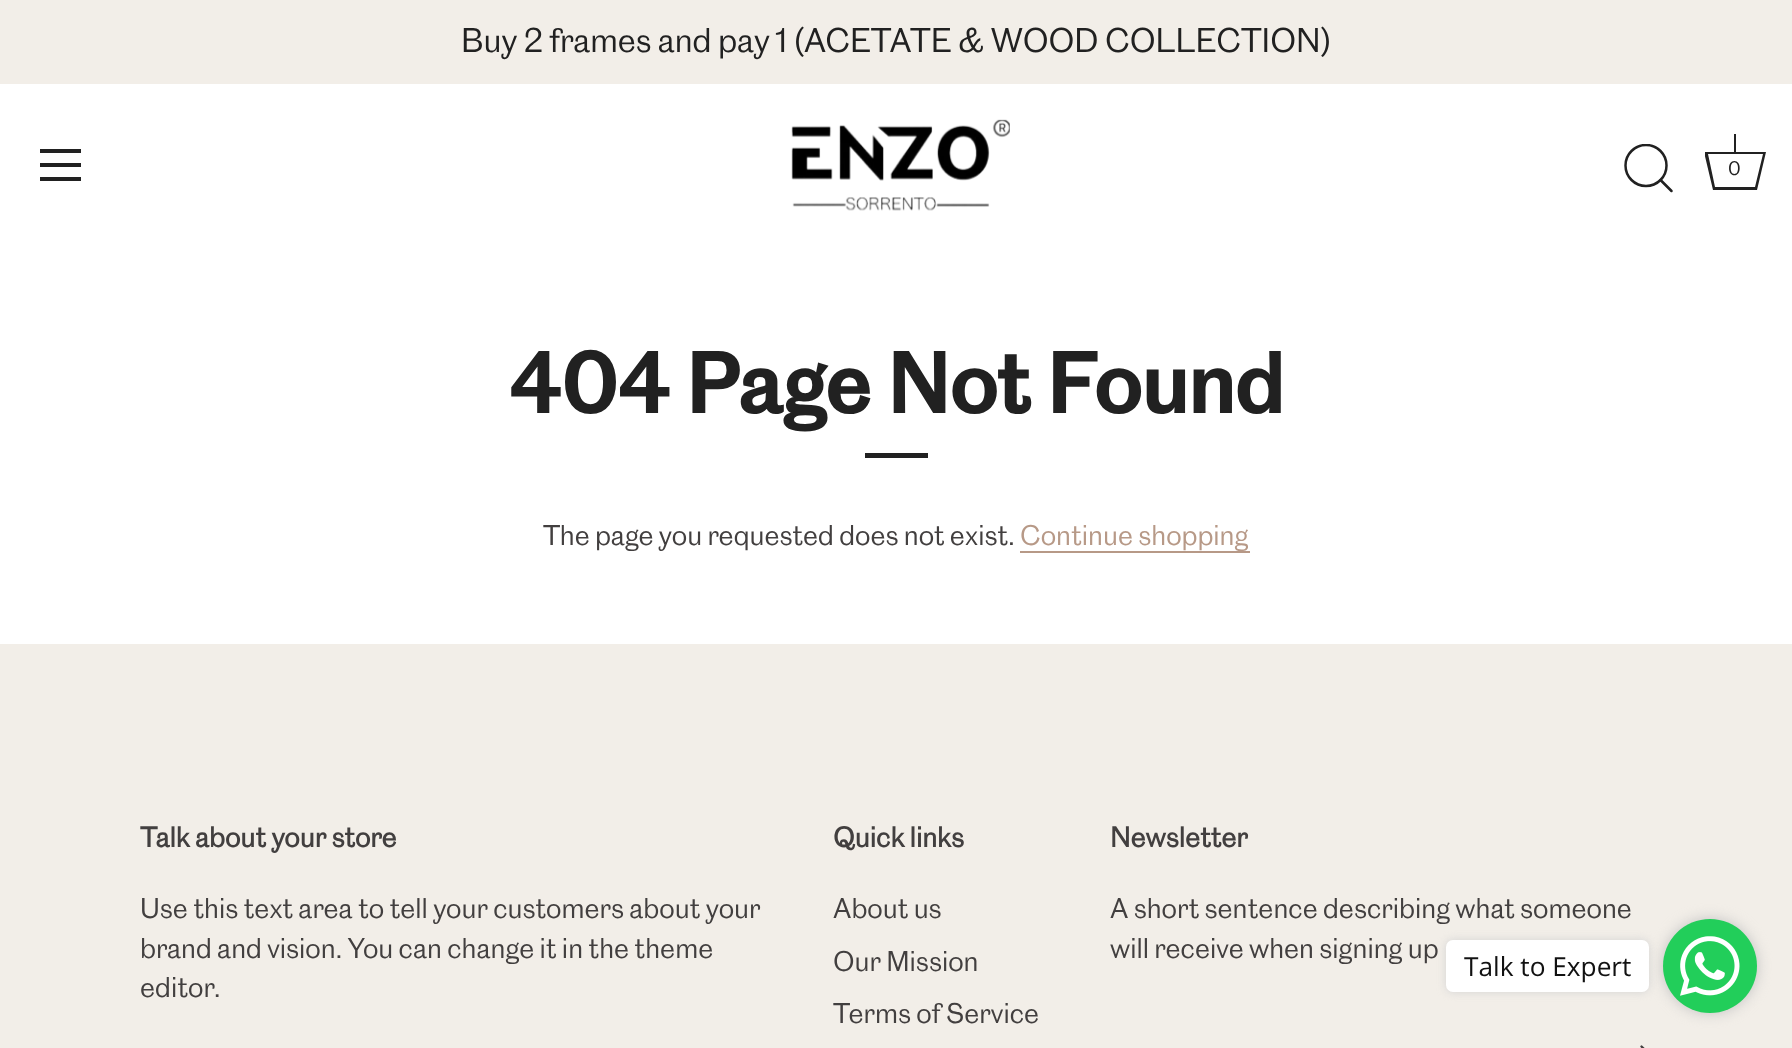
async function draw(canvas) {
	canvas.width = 1792;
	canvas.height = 1048;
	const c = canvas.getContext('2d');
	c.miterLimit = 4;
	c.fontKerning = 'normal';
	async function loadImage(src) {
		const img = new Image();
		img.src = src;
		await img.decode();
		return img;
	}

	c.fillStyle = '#fff';
	c.fillRect(0, 0, 1792, 1048);
	c.fillStyle = '#f2eee8';
	c.fillRect(0, 0, 1792, 84);
	c.font = '31.5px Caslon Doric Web';
	c.fillStyle = '#212121';
	c.fillText('Buy 2 frames and pay 1 (ACETATE & WOOD COLLECTION)', 461, 52);
	for (const [x, y, w, h, color] of [
		[40, 149, 41, 4, '#212121'],
		[40, 163, 41, 4, '#212121'],
		[40, 177, 41, 4, '#212121'],
	]) {
		c.fillStyle = color;
		c.fillRect(x, y, w, h);
	}
	c.drawImage(await loadImage('img1.png'), 791, 119, 219, 92);
	c.save();
	c.beginPath();
	c.rect(1624, 144, 51, 50);
	c.clip();
	c.beginPath();
	c.arc(1646, 165.5, 20.5, 0, 2 * Math.PI);
	c.strokeStyle = '#212121';
	c.lineWidth = 2.5;
	c.stroke();
	c.restore();
	c.beginPath();
	c.moveTo(1671.5, 191);
	c.lineTo(1660.5, 180);
	c.strokeStyle = '#212121';
	c.lineWidth = 2.5;
	c.lineCap = 'round';
	c.lineJoin = 'round';
	c.stroke();
	c.fillRect(1734, 134, 2, 18);
	c.save();
	c.beginPath();
	c.rect(1705, 131, 61, 62);
	c.clip();
	c.beginPath();
	c.moveTo(1763, 154);
	c.lineTo(1755, 187);
	c.lineTo(1715, 187);
	c.lineTo(1708, 154);
	c.lineTo(1763, 154);
	c.moveTo(1766, 152);
	c.lineTo(1704, 152);
	c.lineTo(1713, 190);
	c.lineTo(1757, 190);
	c.closePath();
	c.fill();
	c.restore();
	c.font = '18px Caslon Doric Web';
	c.fillText('0', 1728, 175);
	c.font = 'bold 78.75px "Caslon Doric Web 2"';
	c.fillText('404 Page Not Found', 509, 413);
	c.fillRect(865, 453, 63, 5);
	c.font = '26.25px Caslon Doric Web';
	c.fillStyle = '#423f3f';
	c.fillText('The page you requested does not exist.', 543, 545);
	c.fillStyle = '#b79987';
	c.fillRect(1020, 551, 230, 2);
	c.fillText('Continue shopping', 1020, 545);
	c.fillStyle = '#f2eee8';
	c.fillRect(0, 644, 1792, 404);
	c.font = 'bold 26.25px Caslon Doric Web';
	c.fillStyle = '#423f3f';
	c.fillText('Talk about your store', 140, 847);
	c.font = '26.25px Caslon Doric Web';
	for (const [text, x, y] of [
		['Use this text area to tell your customers about your', 140, 918],
		['brand and vision. You can change it in the theme', 140, 958],
		['editor.', 140, 997],
	]) {
		c.fillText(text, x, y);
	}
	c.font = 'bold 26.25px Caslon Doric Web';
	c.fillText('Quick links', 833, 847);
	c.font = '26.25px Caslon Doric Web';
	for (const [text, x, y] of [
		['About us', 833, 918],
		['Our Mission', 833, 971],
		['Terms of Service', 833, 1023],
	]) {
		c.fillText(text, x, y);
	}
	c.font = 'bold 26.25px Caslon Doric Web';
	c.fillText('Newsletter', 1110, 847);
	c.font = '26.25px Caslon Doric Web';
	c.fillText('A short sentence describing what someone', 1110, 918);
	c.fillText('will receive when signing up', 1110, 958);
	c.beginPath();
	c.moveTo(1641.5, 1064);
	c.lineTo(1650, 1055);
	c.lineTo(1641.5, 1046.5);
	c.strokeStyle = '#423f3f';
	c.lineWidth = 2.3;
	c.lineJoin = 'miter';
	c.stroke();
	c.fillStyle = '#d3d3d3';
	c.filter = 'blur(4.5px)';
	c.beginPath();
	c.roundRect(1446, 940, 203, 52, 7);
	c.fill();
	c.filter = 'none';
	c.fillStyle = '#fff';
	c.beginPath();
	c.roundRect(1446, 940, 203, 52, 7);
	c.fill();
	c.font = '26.25px Open Sans';
	c.fillStyle = '#111';
	c.fillText('Talk to Expert', 1464, 976);
	c.fillStyle = '#c2c2c2';
	c.filter = 'blur(7px)';
	c.beginPath();
	c.roundRect(1663, 919, 94, 94, 47);
	c.fill();
	c.filter = 'none';
	c.fillStyle = '#22ce5a';
	c.beginPath();
	c.arc(1710, 966, 47, 0, 2 * Math.PI);
	c.fill();
	c.drawImage(await loadImage('img2.png'), 1680, 936, 60, 60);
}

draw(document.querySelector('canvas'));
